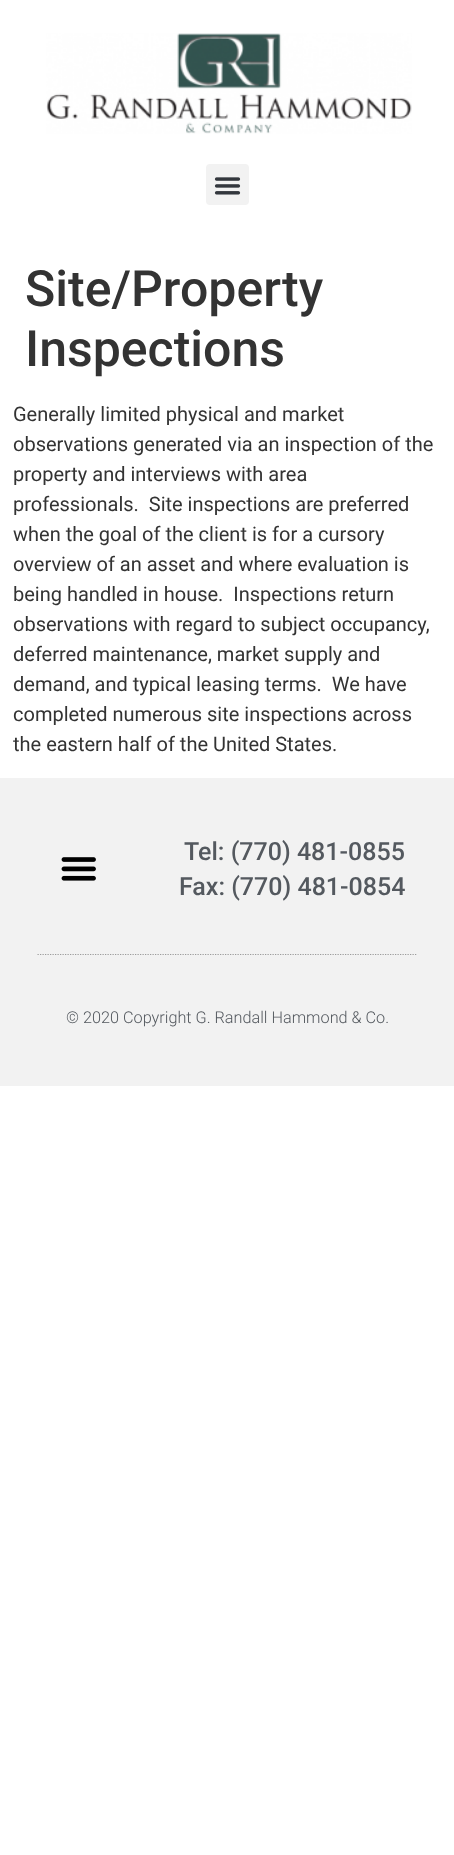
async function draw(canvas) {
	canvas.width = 454;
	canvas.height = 1855;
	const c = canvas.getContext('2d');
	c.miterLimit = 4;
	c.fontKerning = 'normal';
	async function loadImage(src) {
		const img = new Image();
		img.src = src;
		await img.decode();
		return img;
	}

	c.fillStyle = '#fff';
	c.fillRect(0, 0, 454, 1855);
	c.drawImage(await loadImage('img1.png'), 46, 33, 366, 101);
	c.fillStyle = '#f2f2f2';
	c.beginPath();
	c.roundRect(206, 164, 43, 41, 4);
	c.fill();
	c.drawImage(await loadImage('img2.png'), 214, 177, 27, 18);
	c.font = '500 50px Roboto';
	c.fillStyle = '#333';
	c.fillText('Site/Property', 25, 306);
	c.fillText('Inspections', 25, 366);
	c.font = '20px Roboto';
	for (const [text, x, y] of [
		['Generally limited physical and market', 13, 421],
		['observations generated via an inspection of the', 13, 451],
		['property and interviews with area', 13, 481],
		['professionals.  Site inspections are preferred', 13, 511],
		['when the goal of the client is for a cursory', 13, 541],
		['overview of an asset and where evaluation is', 13, 571],
		['being handled in house.  Inspections return', 13, 601],
		['observations with regard to subject occupancy,', 13, 631],
		['deferred maintenance, market supply and', 13, 661],
		['demand, and typical leasing terms.  We have', 13, 691],
		['completed numerous site inspections across', 13, 721],
		['the eastern half of the United States.', 13, 751],
	]) {
		c.fillText(text, x, y);
	}
	c.fillStyle = '#f2f2f2';
	c.fillRect(0, 778, 454, 308);
	c.beginPath();
	c.moveTo(37.5, 954.5);
	c.lineTo(417.5, 954.5);
	c.strokeStyle = '#9b9b9b';
	c.lineWidth = 1.2;
	c.setLineDash([1.25, 1.25]);
	c.stroke();
	c.drawImage(await loadImage('img3.png'), 61, 857, 35, 24);
	c.font = '500 25px Roboto';
	c.fillStyle = '#54595f';
	c.fillText('Tel: (770) 481-0855', 184, 860);
	c.fillText('Fax: (770) 481-0854', 179, 895);
	c.font = '300 16.25px Roboto';
	c.fillText('© 2020 Copyright G. Randall Hammond & Co.', 66, 1023);
}

draw(document.querySelector('canvas'));
